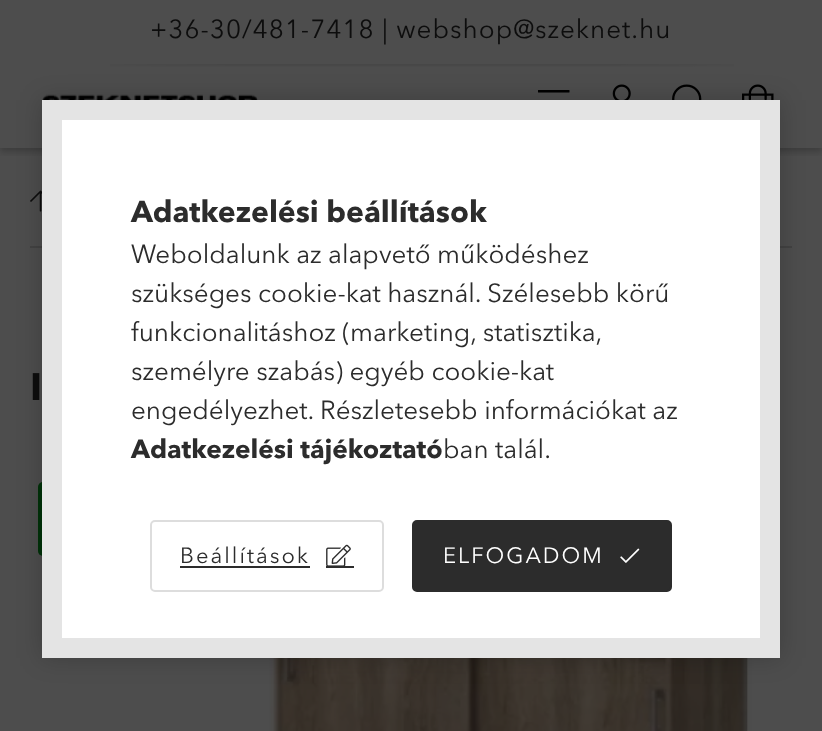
async function draw(canvas) {
	canvas.width = 822;
	canvas.height = 731;
	const c = canvas.getContext('2d');
	c.miterLimit = 4;
	c.fontKerning = 'normal';
	async function loadImage(src) {
		const img = new Image();
		img.src = src;
		await img.decode();
		return img;
	}

	c.fillStyle = '#4d4d4d';
	c.fillRect(0, 0, 822, 731);
	c.save();
	c.beginPath();
	c.rect(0, 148, 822, 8);
	c.clip();
	c.fillStyle = '#00000033';
	c.filter = 'blur(3px)';
	c.beginPath();
	c.rect(0, 4, 822, 148);
	c.fill();
	c.filter = 'none';
	c.restore();
	c.letterSpacing = '1px';
	c.font = '26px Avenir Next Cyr';
	c.fillStyle = '#0d0d0d';
	c.fillText('+36-30/481-7418 | webshop@szeknet.hu', 150, 38);
	c.drawImage(await loadImage('img1.png'), 110, 64, 624, 3);
	c.drawImage(await loadImage('img2.png'), 42, 94, 216, 6);
	c.drawImage(await loadImage('img3.png'), 538, 90, 32, 3);
	c.drawImage(await loadImage('img4.png'), 612, 84, 19, 16);
	c.drawImage(await loadImage('img5.png'), 672, 84, 30, 16);
	c.drawImage(await loadImage('img6.png'), 742, 84, 32, 16);
	c.drawImage(await loadImage('img7.png'), 30, 190, 12, 22);
	c.fillStyle = '#424242';
	c.fillRect(30, 246, 762, 2);
	c.letterSpacing = '0px';
	c.font = 'bold 38px Avenir Next Cyr';
	c.fillStyle = '#0d0d0d';
	c.fillText('I', 30, 400);
	c.fillStyle = '#003209';
	c.beginPath();
	c.roundRect(38, 482, 526, 74, 5);
	c.fill();
	c.drawImage(await loadImage('img8.png'), 269, 658, 483, 73);
	c.fillStyle = '#00000033';
	c.filter = 'blur(12px)';
	c.beginPath();
	c.rect(42, 100, 738, 558);
	c.fill();
	c.filter = 'none';
	c.fillStyle = '#fff';
	c.beginPath();
	c.rect(52, 110, 718, 538);
	c.fill();
	c.strokeStyle = '#e4e4e4';
	c.lineWidth = 20;
	c.stroke();
	c.font = 'bold 30px Avenir Next Cyr';
	c.fillStyle = '#2c2c2c';
	c.fillText('Adatkezelési beállítások', 131, 222);
	c.font = '26px Avenir Next Cyr';
	for (const [text, x, y] of [
		['Weboldalunk az alapvető működéshez', 131, 263],
		['szükséges cookie-kat használ. Szélesebb körű', 131, 302],
		['funkcionalitáshoz (marketing, statisztika,', 131, 341],
		['személyre szabás) egyéb cookie-kat', 131, 380],
		['engedélyezhet. Részletesebb információkat az', 131, 419],
	]) {
		c.fillText(text, x, y);
	}
	c.font = 'bold 26px Avenir Next Cyr';
	c.fillText('Adatkezelési tájékoztató', 131, 458);
	c.font = '26px Avenir Next Cyr';
	c.fillText('ban talál.', 443, 458);
	c.beginPath();
	c.roundRect(151, 521, 232, 70, 4);
	c.strokeStyle = '#ddd';
	c.lineWidth = 2;
	c.stroke();
	c.letterSpacing = '2px';
	c.font = '22px Avenir Next Cyr';
	c.fillText('Beállítások', 180, 563);
	c.fillRect(180, 566, 130, 2);
	c.drawImage(await loadImage('img9.png'), 326, 544, 25, 22);
	c.fillRect(326, 566, 28, 2);
	c.beginPath();
	c.roundRect(413, 521, 258, 70, 4);
	c.fill();
	c.strokeStyle = '#2c2c2c';
	c.stroke();
	c.fillStyle = '#fff';
	c.fillText('ELFOGADOM', 443, 563);
	c.drawImage(await loadImage('img10.png'), 620, 548, 20, 15);
}

draw(document.querySelector('canvas'));
